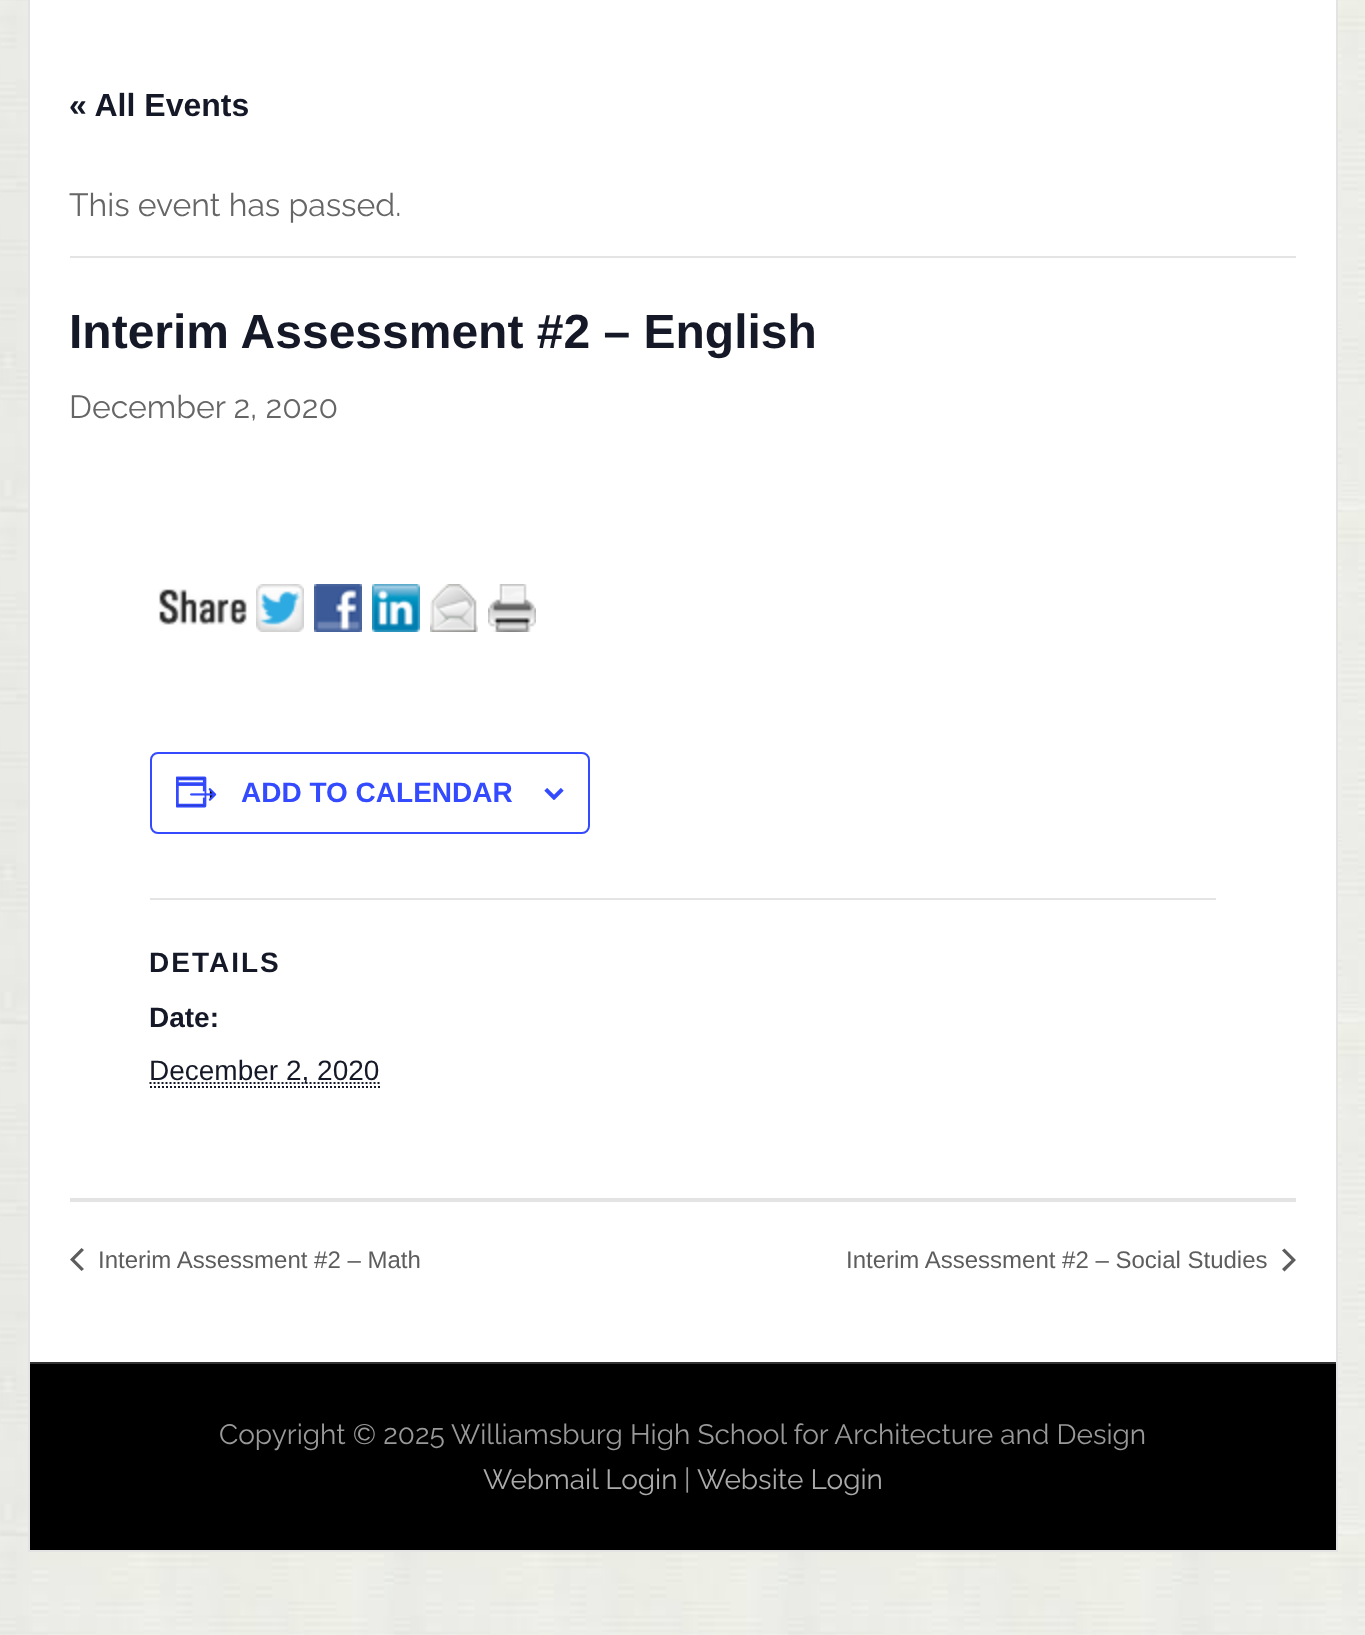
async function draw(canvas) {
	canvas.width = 1365;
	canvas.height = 1635;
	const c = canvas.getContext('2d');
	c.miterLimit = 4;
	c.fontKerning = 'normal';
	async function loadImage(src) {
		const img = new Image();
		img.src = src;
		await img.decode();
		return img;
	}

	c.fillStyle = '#fff';
	c.fillRect(0, 0, 1365, 1635);
	c.drawImage(await loadImage('img1.png'), 0, 0, 1365, 1635);
	c.fillRect(30, 0, 1306, 1362);
	c.strokeStyle = '#e3e3e3';
	c.lineWidth = 2;
	c.strokeRect(29, -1, 1308, 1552);
	c.font = 'bold 32px Liberation Sans';
	c.fillStyle = '#141827';
	c.fillText('« All Events', 69, 116);
	c.fillStyle = '#e4e4e4';
	c.fillRect(70, 256, 1226, 2);
	c.font = '32px Raleway';
	c.fillStyle = '#666';
	c.fillText('This event has passed.', 69, 216);
	c.font = 'bold 48px Liberation Sans';
	c.fillStyle = '#141827';
	c.fillText('Interim Assessment #2 – English', 69, 348);
	c.font = '32px Raleway';
	c.fillStyle = '#666';
	c.fillText('December 2, 2020', 69, 418);
	c.fillStyle = '#e3e3e3';
	c.fillRect(70, 1198, 1226, 2);
	c.drawImage(await loadImage('img2.png'), 158, 588, 89, 37);
	c.drawImage(await loadImage('img3.png'), 256, 584, 48, 48);
	c.drawImage(await loadImage('img4.png'), 314, 584, 48, 48);
	c.drawImage(await loadImage('img5.png'), 372, 584, 48, 48);
	c.drawImage(await loadImage('img6.png'), 430, 584, 48, 48);
	c.drawImage(await loadImage('img7.png'), 488, 584, 48, 48);
	c.beginPath();
	c.roundRect(151, 753, 438, 80, 7);
	c.strokeStyle = '#334aff';
	c.stroke();
	c.drawImage(await loadImage('img8.png'), 176, 776, 41, 32);
	c.font = 'bold 28px Liberation Sans';
	c.fillStyle = '#334aff';
	c.fillText('ADD TO CALENDAR', 241, 802);
	c.drawImage(await loadImage('img9.png'), 544, 788, 20, 12);
	c.fillStyle = '#e4e4e4';
	c.fillRect(150, 898, 1066, 2);
	c.letterSpacing = '2px';
	c.fillStyle = '#141827';
	c.fillText('DETAILS', 149, 972);
	c.letterSpacing = '0px';
	c.fillText('Date:', 149, 1027);
	c.beginPath();
	c.moveTo(149.5, 1083);
	c.lineTo(379.5, 1083);
	c.strokeStyle = '#141827';
	c.setLineDash([2, 2]);
	c.stroke();
	c.font = '28px Liberation Sans';
	c.fillText('December 2, 2020', 149, 1080);
	c.beginPath();
	c.moveTo(150, 1087);
	c.lineTo(380, 1087);
	c.stroke();
	c.fillStyle = '#e4e4e4';
	c.fillRect(70, 1200, 1226, 2);
	c.fillStyle = '#5d5d5d';
	c.beginPath();
	c.moveTo(84, 1269);
	c.lineTo(81.5, 1271);
	c.lineTo(70, 1259.5);
	c.lineTo(81.5, 1248);
	c.lineTo(84, 1250);
	c.lineTo(74.5, 1259.5);
	c.closePath();
	c.fill();
	c.font = '24px Liberation Sans';
	c.fillText('Interim Assessment #2 – Math', 98, 1268);
	c.fillText('Interim Assessment #2 – Social Studies', 846, 1268);
	c.beginPath();
	c.moveTo(1282, 1250.5);
	c.lineTo(1284.5, 1248.5);
	c.lineTo(1296, 1260);
	c.lineTo(1284.5, 1271.5);
	c.lineTo(1282, 1269);
	c.lineTo(1291.5, 1260);
	c.closePath();
	c.fill();
	c.fillStyle = '#000';
	c.fillRect(30, 1364, 1306, 186);
	c.fillStyle = '#333';
	c.fillRect(30, 1362, 1306, 2);
	c.font = '28px Raleway';
	c.fillStyle = '#999';
	c.fillText('Copyright © 2025 Williamsburg High School for Architecture and Design', 219, 1444);
	c.fillStyle = '#aaa';
	c.fillText('Webmail Login', 483, 1489);
	c.fillStyle = '#999';
	c.fillText('|', 684, 1489);
	c.fillStyle = '#aaa';
	c.fillText('Website Login', 697, 1489);
}

draw(document.querySelector('canvas'));
